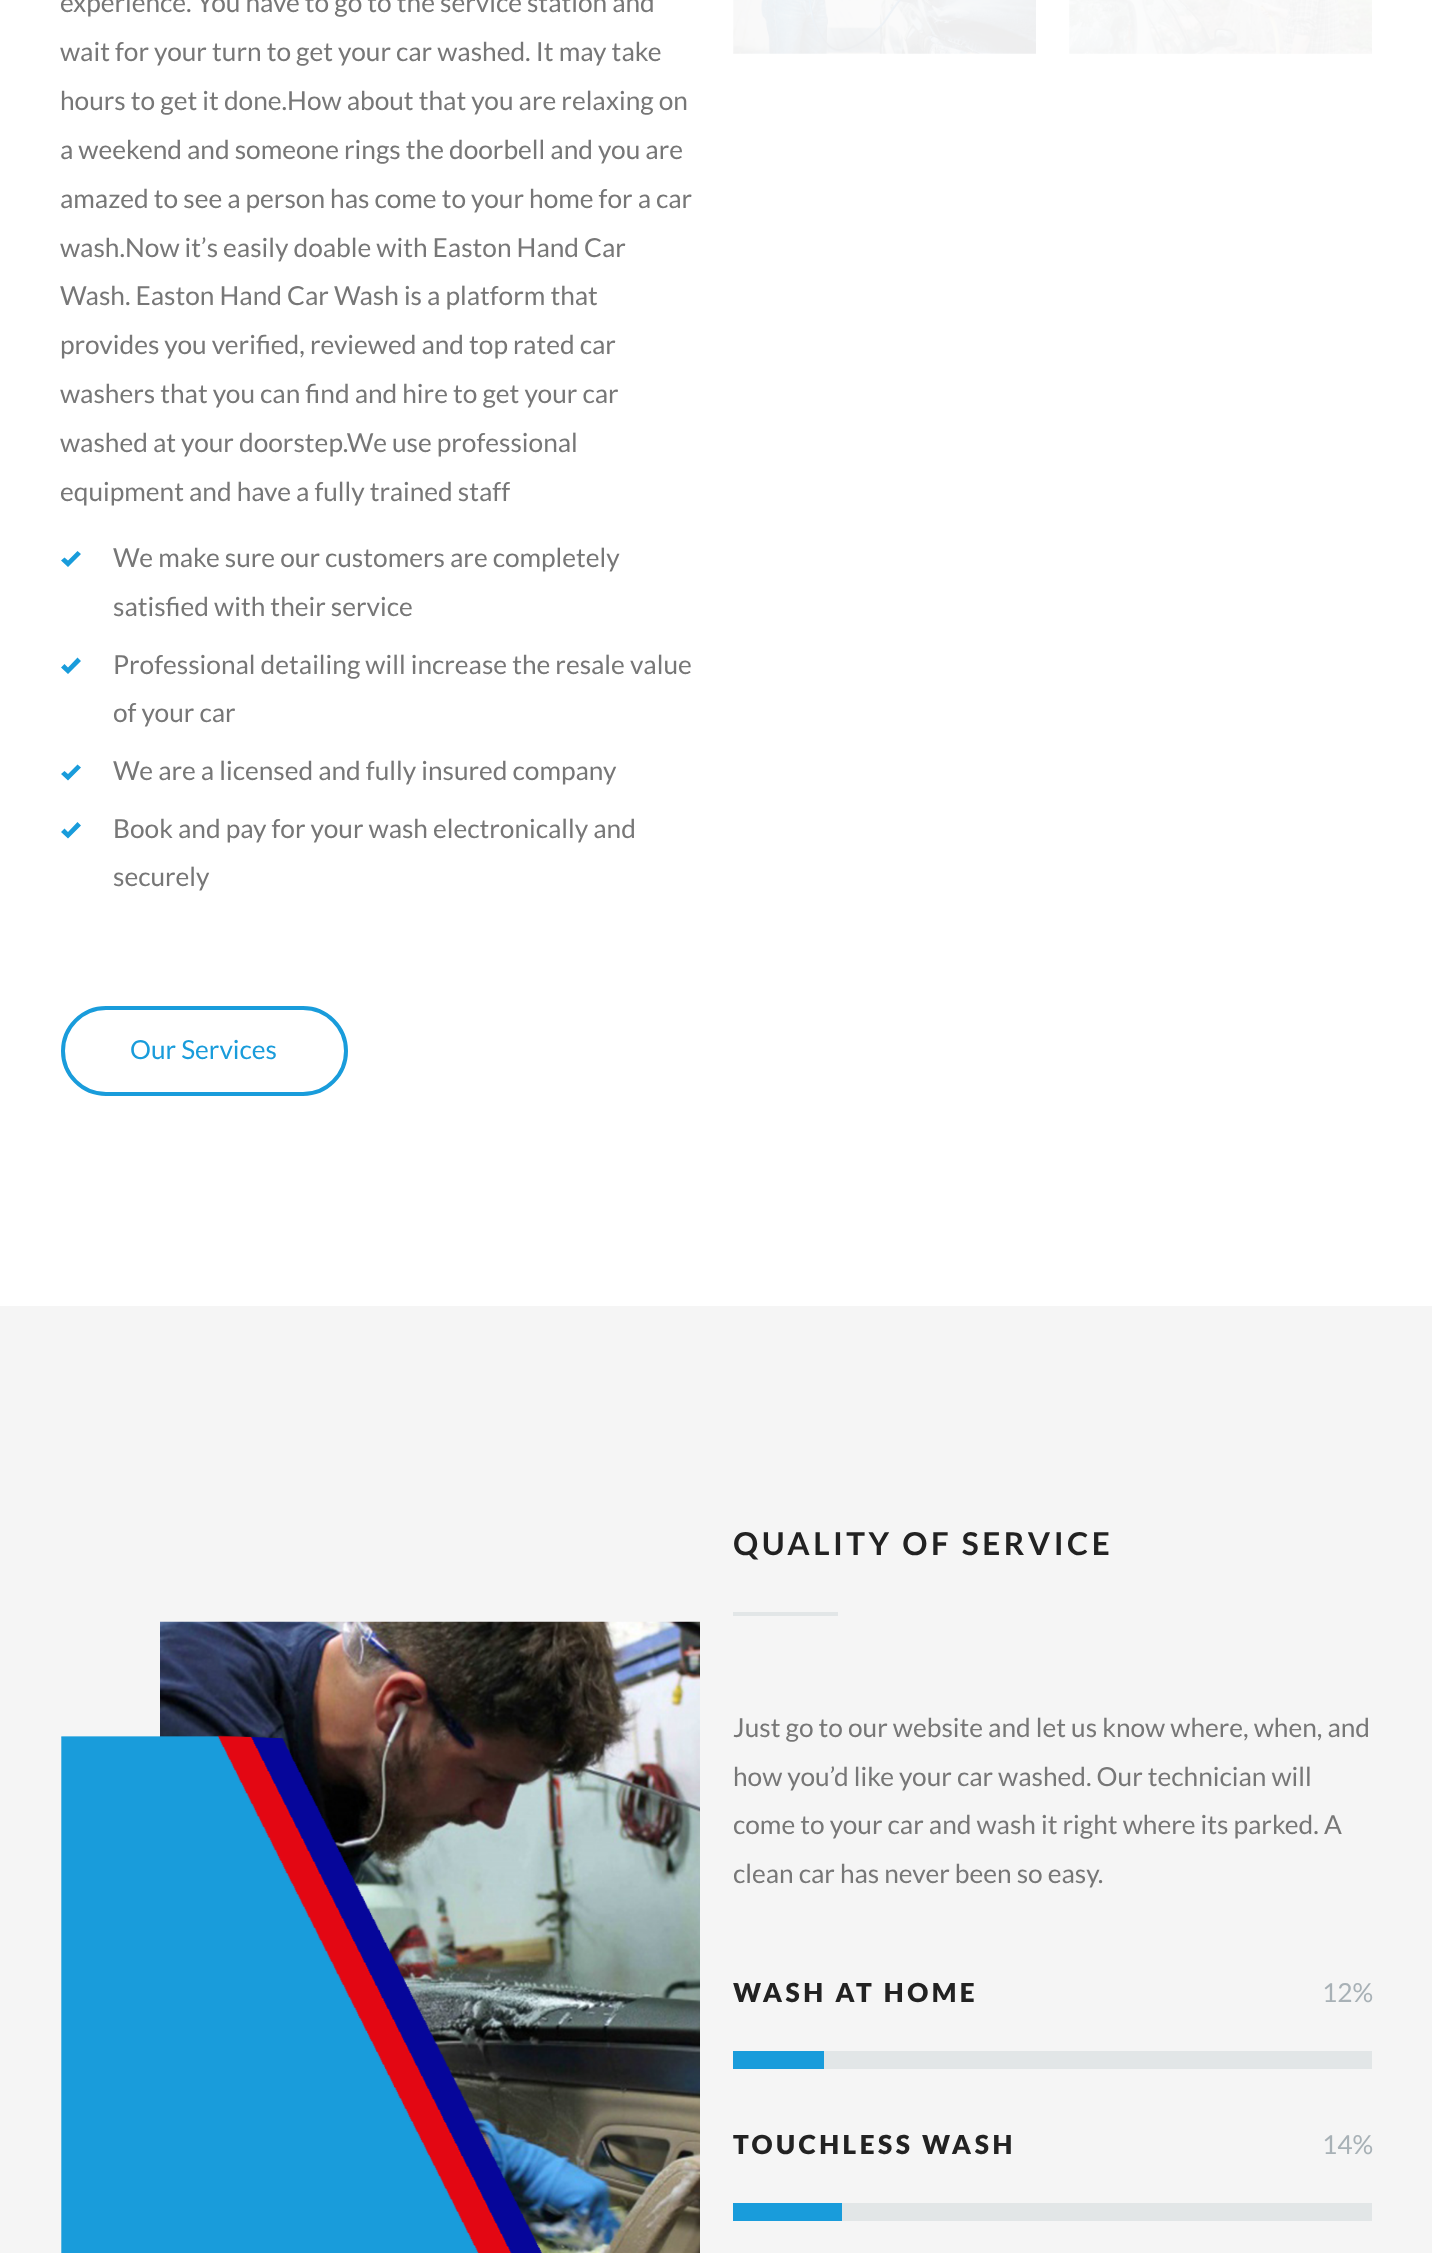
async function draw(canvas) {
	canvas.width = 1432;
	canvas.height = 2253;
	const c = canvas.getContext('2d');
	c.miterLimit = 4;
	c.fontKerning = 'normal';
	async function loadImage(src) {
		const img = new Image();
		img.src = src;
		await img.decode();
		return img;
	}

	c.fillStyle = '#fff';
	c.fillRect(0, 0, 1432, 2253);
	c.font = '26.25px Lato';
	c.fillStyle = '#777';
	for (const [text, x, y] of [
		['experience. You have to go to the service station and', 60, 12],
		['wait for your turn to get your car washed. It may take', 60, 61],
		['hours to get it done.How about that you are relaxing on', 60, 110],
		['a weekend and someone rings the doorbell and you are', 60, 159],
		['amazed to see a person has come to your home for a car', 60, 208],
		['wash.Now it’s easily doable with Easton Hand Car', 60, 257],
		['Wash. Easton Hand Car Wash is a platform that', 60, 305],
		['provides you verified, reviewed and top rated car', 60, 354],
		['washers that you can find and hire to get your car', 60, 403],
		['washed at your doorstep.We use professional', 60, 452],
		['equipment and have a fully trained staff', 60, 501],
	]) {
		c.fillText(text, x, y);
	}
	c.fillStyle = '#199cdb';
	c.beginPath();
	c.moveTo(77.5, 551);
	c.lineTo(68, 560.5);
	c.lineTo(64.5, 557.5);
	c.lineTo(61, 560.5);
	c.lineTo(68, 567);
	c.lineTo(81, 554);
	c.closePath();
	c.fill();
	c.fillStyle = '#777';
	c.fillText('We make sure our customers are completely', 113, 567);
	c.fillText('satisfied with their service', 113, 616);
	c.fillStyle = '#199cdb';
	c.beginPath();
	c.moveTo(77.5, 657.5);
	c.lineTo(68, 667.5);
	c.lineTo(64.5, 664);
	c.lineTo(61, 667.5);
	c.lineTo(68, 674);
	c.lineTo(81, 661);
	c.closePath();
	c.fill();
	c.fillStyle = '#777';
	c.fillText('Professional detailing will increase the resale value', 113, 674);
	c.fillText('of your car', 113, 722);
	c.fillStyle = '#199cdb';
	c.beginPath();
	c.moveTo(77.5, 764.5);
	c.lineTo(68, 774);
	c.lineTo(64.5, 771);
	c.lineTo(61, 774);
	c.lineTo(68, 780.5);
	c.lineTo(81, 767.5);
	c.closePath();
	c.fill();
	c.fillStyle = '#777';
	c.fillText('We are a licensed and fully insured company', 113, 780);
	c.fillStyle = '#199cdb';
	c.beginPath();
	c.moveTo(77.5, 822);
	c.lineTo(68, 832);
	c.lineTo(64.5, 828.5);
	c.lineTo(61, 832);
	c.lineTo(68, 838.5);
	c.lineTo(81, 825.5);
	c.closePath();
	c.fill();
	c.fillStyle = '#777';
	c.fillText('Book and pay for your wash electronically and', 113, 838);
	c.fillText('securely', 113, 886);
	c.beginPath();
	c.roundRect(63, 1008, 283, 86, 43);
	c.strokeStyle = '#199cdb';
	c.lineWidth = 4;
	c.stroke();
	c.fillStyle = '#199cdb';
	c.fillText('Our Services', 130, 1059);
	c.drawImage(await loadImage('img1.png'), 733, 0, 303, 54);
	c.drawImage(await loadImage('img2.png'), 1069, 0, 303, 54);
	c.fillStyle = '#f5f5f5';
	c.fillRect(0, 1306, 1432, 947);
	c.drawImage(await loadImage('img3.png'), 61, 1621, 639, 632);
	c.letterSpacing = '3.5px';
	c.font = 'bold 31.5px Lato';
	c.fillStyle = '#222';
	c.fillText('QUALITY OF SERVICE', 733, 1555);
	c.fillStyle = '#e2e6e7';
	c.fillRect(733, 1612, 105, 4);
	c.letterSpacing = '0px';
	c.font = '26.25px Lato';
	c.fillStyle = '#777';
	for (const [text, x, y] of [
		['Just go to our website and let us know where, when, and', 733, 1737],
		['how you’d like your car washed. Our technician will', 733, 1786],
		['come to your car and wash it right where its parked. A', 733, 1834],
		['clean car has never been so easy.', 733, 1883],
	]) {
		c.fillText(text, x, y);
	}
	c.letterSpacing = '3.5px';
	c.font = '900 26.25px Lato';
	c.fillStyle = '#222';
	c.fillText('WASH AT HOME', 733, 2002);
	c.letterSpacing = '0px';
	c.font = '26.25px Lato';
	c.fillStyle = '#a8b1b6';
	c.fillText('12%', 1322, 2002);
	c.fillStyle = '#e2e6e7';
	c.fillRect(824, 2051, 548, 18);
	c.fillStyle = '#199cdb';
	c.fillRect(733, 2051, 91, 18);
	c.letterSpacing = '3.5px';
	c.font = '900 26.25px Lato';
	c.fillStyle = '#222';
	c.fillText('TOUCHLESS WASH', 733, 2154);
	c.letterSpacing = '0px';
	c.font = '26.25px Lato';
	c.fillStyle = '#a8b1b6';
	c.fillText('14%', 1322, 2154);
	c.fillStyle = '#e2e6e7';
	c.fillRect(842, 2203, 530, 18);
	c.fillStyle = '#199cdb';
	c.fillRect(733, 2203, 109, 18);
}

draw(document.querySelector('canvas'));
